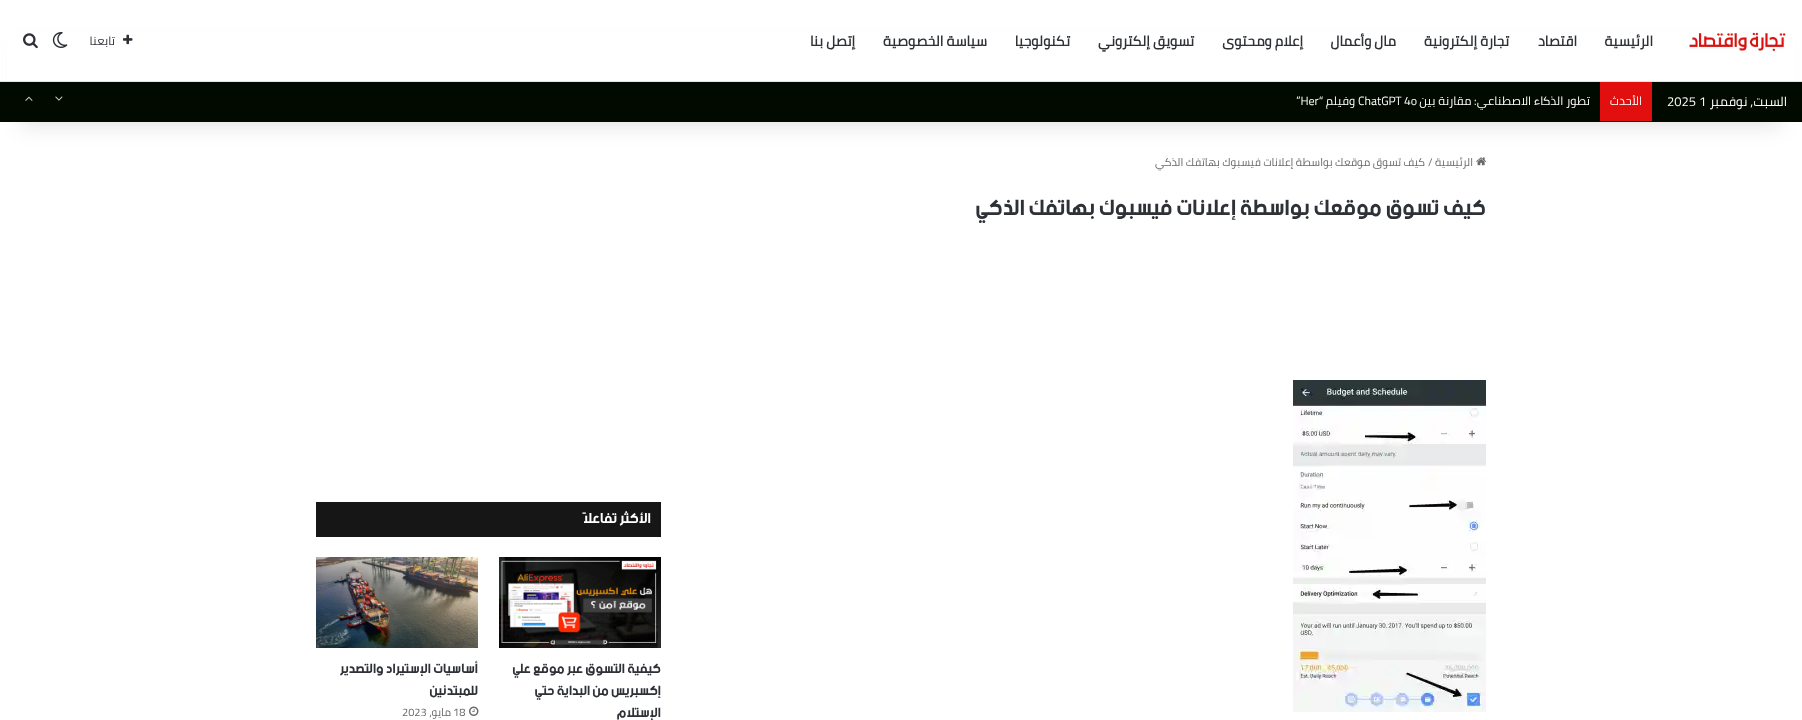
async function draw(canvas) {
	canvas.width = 1802;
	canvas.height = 720;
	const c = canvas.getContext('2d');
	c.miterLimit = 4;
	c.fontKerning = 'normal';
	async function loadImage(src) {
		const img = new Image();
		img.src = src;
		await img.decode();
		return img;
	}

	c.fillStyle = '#fff';
	c.fillRect(0, 0, 1802, 720);
	c.drawImage(await loadImage('img7.png'), 1476, 157, 10, 9);
	c.fillStyle = '#0000001a';
	c.filter = 'blur(10px)';
	c.beginPath();
	c.rect(20, 45, 1762, 82);
	c.fill();
	c.filter = 'none';
	c.fillStyle = '#fff';
	c.fillRect(7, 32, 1788, 49);
	c.fillStyle = '#e6e6e6';
	c.fillRect(0, 81, 1802, 1);
	c.drawImage(await loadImage('img1.png'), 1689, 32, 97, 20);
	c.direction = 'rtl';
	c.font = 'bold 14px Cairo';
	c.fillStyle = '#2e3136';
	for (const [text, x, y] of [
		['الرئيسية', 1653, 46],
		['اقتصاد', 1577, 46],
		['تجارة إلكترونية', 1509, 46],
		['مال وأعمال', 1396, 46],
		['إعلام ومحتوى', 1303, 46],
		['تسويق إلكتروني', 1194, 46],
		['تكنولوجيا', 1070, 46],
		['سياسة الخصوصية', 987, 46],
		['إتصل بنا', 855, 46],
	]) {
		c.fillText(text, x, y);
	}
	c.drawImage(await loadImage('img2.png'), 123, 34, 10, 11);
	c.font = '12px Cairo';
	c.fillText('تابعنا', 115, 45);
	c.drawImage(await loadImage('img3.png'), 52, 32, 16, 16);
	c.drawImage(await loadImage('img4.png'), 23, 33, 15, 16);
	c.fillStyle = '#020a00';
	c.fillRect(0, 82, 1802, 40);
	c.font = '13px Cairo';
	c.fillStyle = '#fff';
	c.fillText('السبت, نوفمبر', 1787, 106);
	c.direction = 'ltr';
	c.fillText('2025 1', 1667, 106);
	c.fillStyle = '#e20f0f';
	c.fillRect(1600, 82, 52, 39);
	c.direction = 'rtl';
	c.font = '12px Cairo';
	c.fillStyle = '#fff';
	c.fillText('الأحدث', 1642, 105);
	c.fillText('تطور الذكاء الاصطناعي: مقارنة بين', 1590, 105);
	c.direction = 'ltr';
	c.fillText('ChatGPT 4o', 1358, 105);
	c.direction = 'rtl';
	c.fillText('وفيلم “', 1355, 105);
	c.direction = 'ltr';
	c.fillText('”Her', 1296, 105);
	c.drawImage(await loadImage('img5.png'), 55, 96, 8, 5);
	c.drawImage(await loadImage('img6.png'), 25, 96, 8, 5);
	c.direction = 'rtl';
	c.font = '11px Cairo';
	c.fillStyle = '#686868';
	c.fillText('الرئيسية', 1473, 166);
	c.direction = 'ltr';
	c.fillText('/', 1428, 166);
	c.direction = 'rtl';
	c.fillText('كيف تسوق موقعك بواسطة إعلانات فيسبوك بهاتفك الذكي', 1425, 166);
	c.font = '900 23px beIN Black';
	c.fillStyle = '#2e3136';
	c.fillText('كيف تسوق موقعك بواسطة إعلانات فيسبوك بهاتفك الذكي', 1486, 215);
	c.drawImage(await loadImage('img8.png'), 1293, 380, 193, 332);
	c.fillStyle = '#161616';
	c.fillRect(316, 502, 345, 35);
	c.font = '900 15px beIN Black';
	c.fillStyle = '#fff';
	c.fillText('الأكثر تفاعلاً', 651, 523);
	c.drawImage(await loadImage('img9.png'), 499, 557, 162, 91);
	c.font = '900 14px beIN Black';
	c.fillStyle = '#2e3136';
	for (const [text, x, y] of [
		['كيفية التسوق عبر موقع علي', 661, 673],
		['إكسبريس من البداية حتي', 661, 695],
		['الإستلام', 661, 717],
	]) {
		c.fillText(text, x, y);
	}
	c.drawImage(await loadImage('img10.png'), 316, 557, 162, 91);
	c.fillText('أساسيات الإستيراد والتصدير', 478, 673);
	c.fillText('للمبتدئين', 478, 695);
	c.drawImage(await loadImage('img11.png'), 469, 706, 10, 10);
	c.direction = 'ltr';
	c.font = '11px Cairo';
	c.fillStyle = '#686868';
	c.fillText('18', 453, 716);
	c.direction = 'rtl';
	c.fillText('مايو،', 451, 716);
	c.direction = 'ltr';
	c.fillText('2023', 402, 716);
}

draw(document.querySelector('canvas'));
